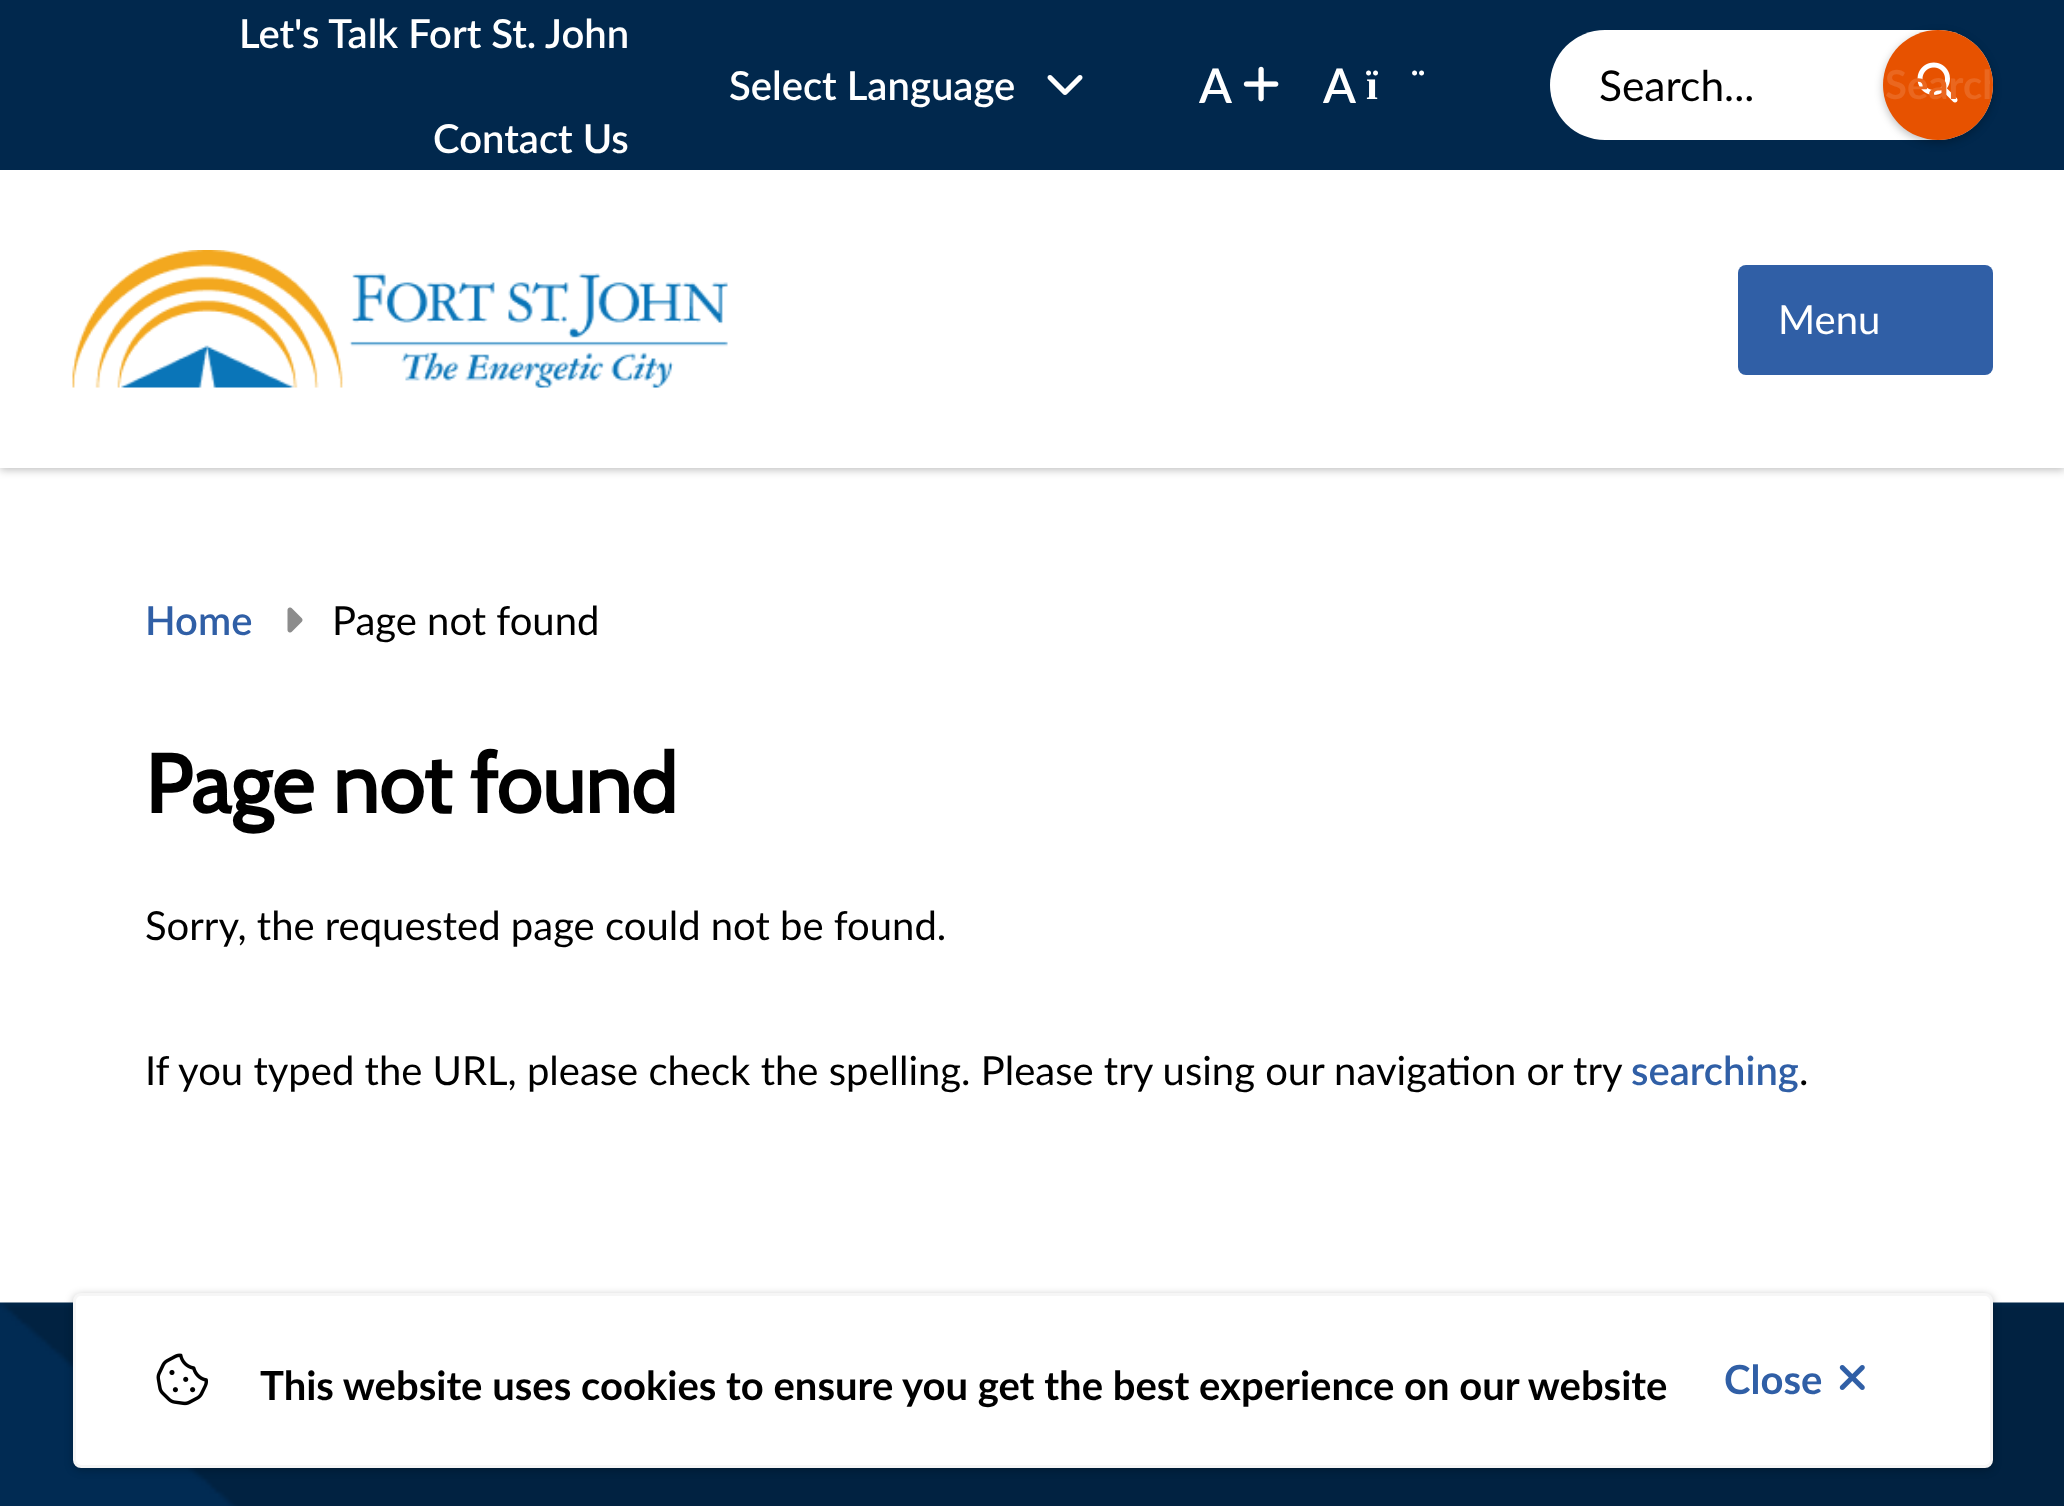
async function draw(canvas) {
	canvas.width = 2064;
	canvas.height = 1506;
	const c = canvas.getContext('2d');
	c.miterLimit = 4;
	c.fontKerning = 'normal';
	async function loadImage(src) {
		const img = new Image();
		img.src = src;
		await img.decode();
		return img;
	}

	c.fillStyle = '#fff';
	c.fillRect(0, 0, 2064, 1506);
	c.fillStyle = '#00000040';
	c.filter = 'blur(4px)';
	c.beginPath();
	c.rect(0, 3, 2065, 467);
	c.fill();
	c.filter = 'none';
	c.fillStyle = '#01284d';
	c.fillRect(0, 0, 2064, 170);
	c.font = '600 40px Lato';
	c.fillStyle = '#fff';
	for (const [text, x, y] of [
		['Let\'s Talk Fort St. John', 239, 48],
		['Contact Us', 433, 153],
		['Select Language', 729, 100],
	]) {
		c.fillText(text, x, y);
	}
	c.drawImage(await loadImage('img1.png'), 1047, 75, 36, 20);
	c.font = '600 48px Lato';
	c.fillText('A', 1199, 103);
	c.drawImage(await loadImage('img2.png'), 1243, 66, 36, 36);
	c.fillText('A', 1323, 103);
	c.font = 'bold 42.5px Liberation Serif';
	c.fillText('ï', 1366, 99);
	c.fillText('¨', 1411, 99);
	c.beginPath();
	c.roundRect(1550, 30, 443, 110, 55);
	c.fill();
	c.font = '42.5px Lato';
	c.fillStyle = '#000';
	c.fillText('Search...', 1599, 101);
	c.fillStyle = '#00000040';
	c.filter = 'blur(4px)';
	c.beginPath();
	c.roundRect(1883, 33, 110, 110, 55);
	c.fill();
	c.filter = 'none';
	c.fillStyle = '#e75200';
	c.beginPath();
	c.arc(1938, 85, 55, 0, 2 * Math.PI);
	c.fill();
	c.drawImage(await loadImage('img3.png'), 1917, 62, 41, 41);
	c.save();
	c.beginPath();
	c.roundRect(1885, 33, 105, 105, 5);
	c.clip();
	c.font = 'bold 40px Lato';
	c.fillStyle = '#ea671f';
	c.fillText('Search', 1885, 99);
	c.restore();
	c.fillStyle = '#fff';
	c.fillRect(0, 170, 2064, 298);
	c.drawImage(await loadImage('img4.png'), 72, 250, 656, 138);
	c.fillStyle = '#305fa6';
	c.beginPath();
	c.roundRect(1738, 265, 255, 110, 8);
	c.fill();
	c.font = '40px Lato';
	c.fillStyle = '#fff';
	c.fillText('Menu', 1778, 334);
	c.font = '600 40px Lato';
	c.fillStyle = '#305fa6';
	c.fillText('Home', 145, 635);
	c.drawImage(await loadImage('img5.png'), 287, 607, 16, 26);
	c.font = '40px Lato';
	c.fillStyle = '#000';
	c.fillText('Page not found', 332, 635);
	c.font = 'bold 82.5px Cabin';
	c.fillText('Page not found', 145, 813);
	c.font = '40px Lato';
	c.fillText('Sorry, the requested page could not be found.', 145, 940);
	c.fillText('If you typed the URL, please check the spelling. Please try using our navigation or try', 145, 1085);
	c.font = '600 40px Lato';
	c.fillStyle = '#305fa6';
	c.fillText('searching', 1631, 1085);
	c.font = '40px Lato';
	c.fillStyle = '#000';
	c.fillText('.', 1799, 1085);
	c.drawImage(await loadImage('img6.png'), 0, 1302, 2064, 204);
	c.fillStyle = '#00000040';
	c.filter = 'blur(4px)';
	c.beginPath();
	c.roundRect(73, 1295, 1920, 175, 8);
	c.fill();
	c.filter = 'none';
	c.fillStyle = '#fff';
	c.beginPath();
	c.roundRect(74.5, 1294.5, 1917, 172, 6.5);
	c.fill();
	c.strokeStyle = '#f6f6f6';
	c.lineWidth = 3;
	c.stroke();
	c.drawImage(await loadImage('img7.png'), 156, 1353, 52, 53);
	c.font = 'bold 40px Lato';
	c.fillStyle = '#000';
	c.fillText('This website uses cookies to ensure you get the best experience on our website', 260, 1400);
	c.fillStyle = '#305fa6';
	c.fillText('Close', 1724, 1394);
	c.drawImage(await loadImage('img8.png'), 1839, 1365, 26, 25);
}

draw(document.querySelector('canvas'));
